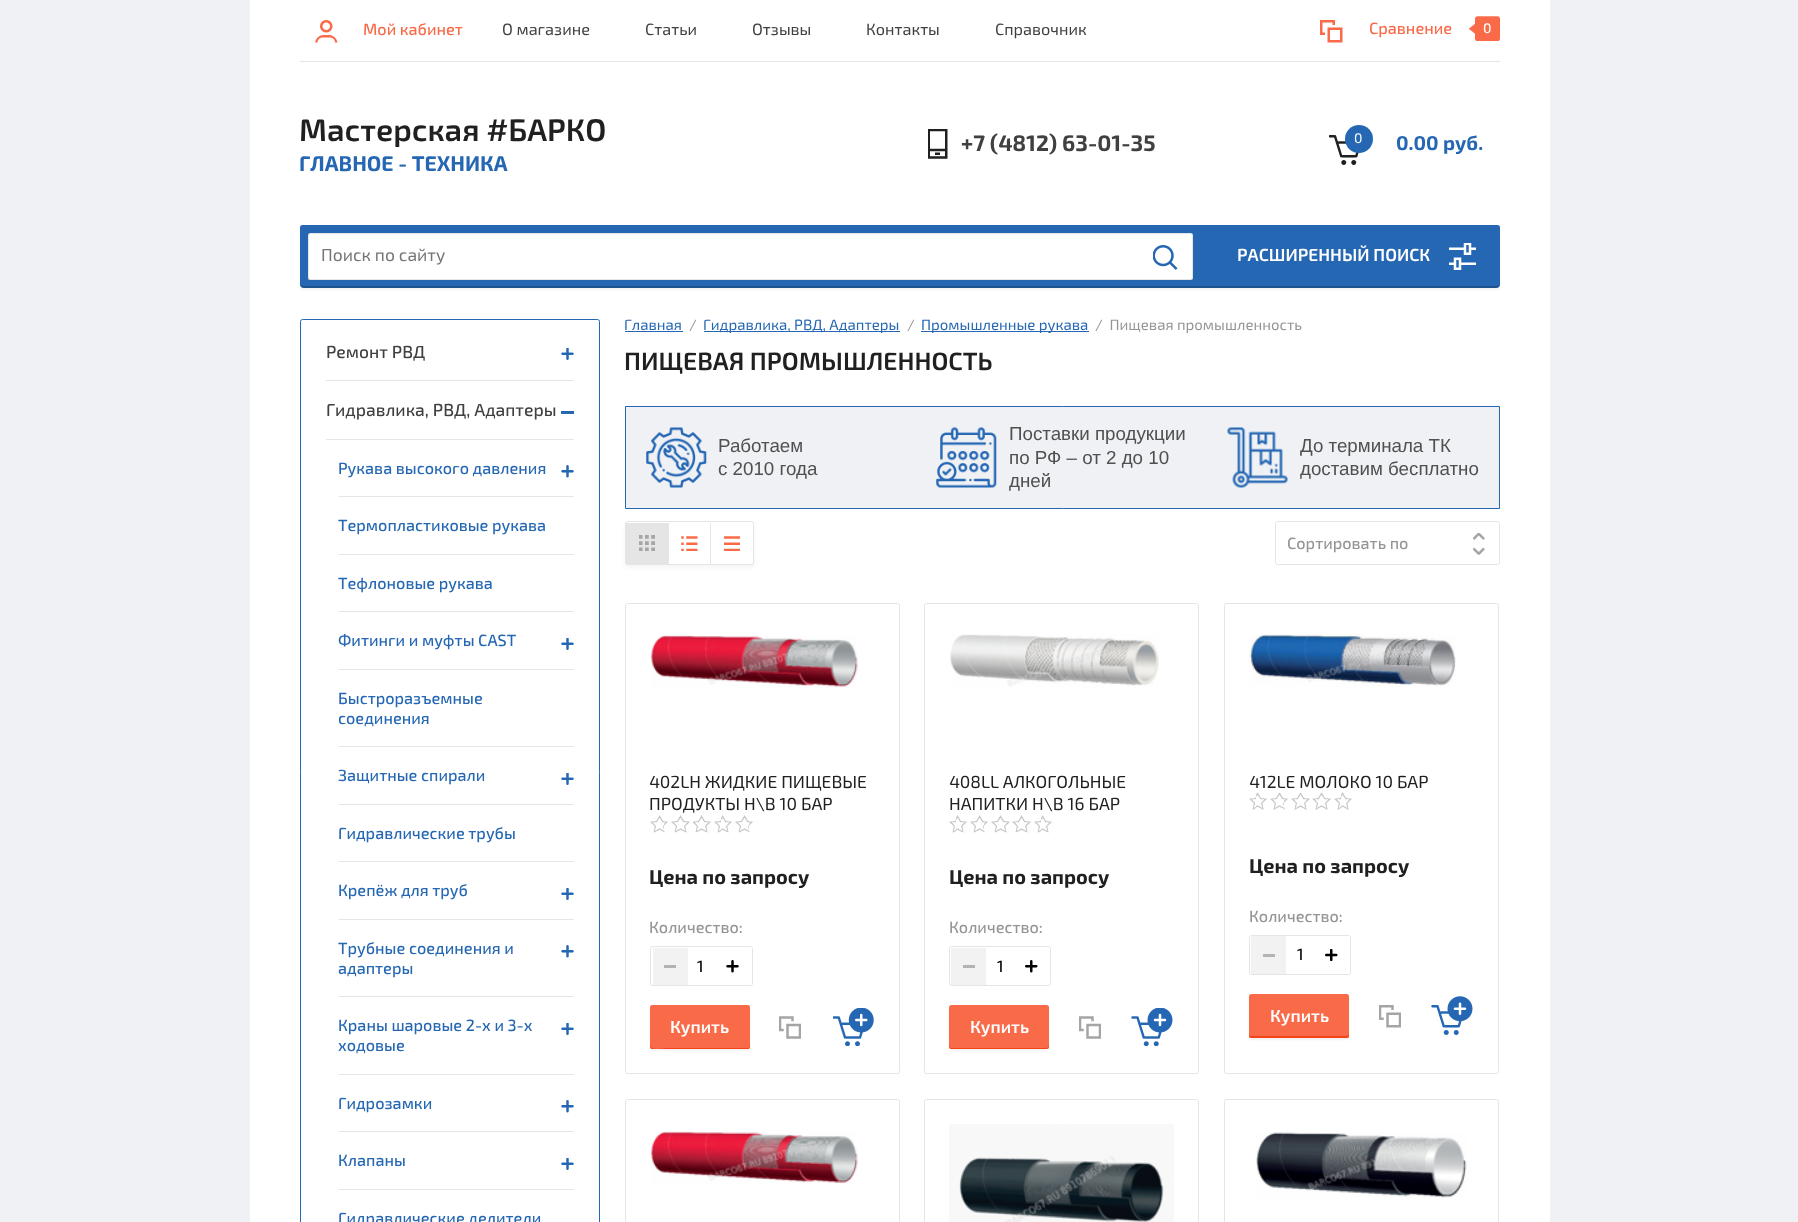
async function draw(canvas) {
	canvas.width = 1798;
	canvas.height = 1222;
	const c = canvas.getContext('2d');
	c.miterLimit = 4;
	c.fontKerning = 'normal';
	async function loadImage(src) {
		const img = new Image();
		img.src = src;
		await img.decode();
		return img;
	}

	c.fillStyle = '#eff1f5';
	c.fillRect(0, 0, 1798, 1222);
	c.fillStyle = '#fff';
	c.fillRect(250, 0, 1300, 1222);
	c.fillStyle = '#e5e5e5';
	c.fillRect(300, 61, 1200, 1);
	c.drawImage(await loadImage('img1.png'), 315, 20, 23, 23);
	c.font = '500 16.25px "Exo 2"';
	c.fillStyle = '#f96a48';
	c.fillText('Мой кабинет', 363, 35);
	c.font = '16.25px "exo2"';
	c.fillStyle = '#404040';
	for (const [text, x, y] of [
		['О магазине', 502, 35],
		['Статьи', 645, 35],
		['Отзывы', 752, 35],
		['Контакты', 866, 35],
		['Справочник', 995, 35],
	]) {
		c.fillText(text, x, y);
	}
	c.drawImage(await loadImage('img2.png'), 1320, 20, 23, 23);
	c.font = '500 16.25px "Exo 2"';
	c.fillStyle = '#f96a48';
	c.fillText('Сравнение', 1369, 34);
	c.drawImage(await loadImage('img3.png'), 1469, 16, 31, 25);
	c.font = '500 14px "Exo 2"';
	c.fillStyle = '#fff';
	c.fillText('0', 1483, 33);
	c.font = '600 31.25px "Exo 2"';
	c.fillStyle = '#202020';
	c.fillText('Мастерская #БАРКО', 299, 141);
	c.font = 'bold 21.25px "exo2"';
	c.fillStyle = '#2567b3';
	c.fillText('ГЛАВНОЕ - ТЕХНИКА', 299, 171);
	c.drawImage(await loadImage('img4.png'), 928, 129, 20, 30);
	c.font = 'bold 22.5px "exo2"';
	c.fillStyle = '#404040';
	c.fillText('+7 (4812) 63-01-35', 961, 151);
	c.drawImage(await loadImage('img5.png'), 1329, 135, 30, 30);
	c.fillStyle = '#2567b3';
	c.beginPath();
	c.arc(1359, 139, 14, 0, 2 * Math.PI);
	c.fill();
	c.font = '14px "exo2"';
	c.fillStyle = '#fff';
	c.fillText('0', 1354, 143);
	c.font = 'bold 20px "exo2"';
	c.fillStyle = '#2567b3';
	c.fillText('0.00 руб.', 1396, 150);
	c.fillStyle = '#0000000d';
	c.filter = 'blur(1px)';
	c.beginPath();
	c.roundRect(300, 228, 1200, 62, 4);
	c.fill();
	c.filter = 'none';
	c.fillStyle = '#2567b3';
	c.beginPath();
	c.roundRect(300, 225, 1200, 63, [2.5, 2.5, 4, 4]);
	c.fill();
	c.fillStyle = '#00000033';
	c.beginPath();
	c.moveTo(300, 282);
	c.lineTo(300, 284);
	c.bezierCurveTo(300, 286, 302, 288, 304, 288);
	c.lineTo(1496, 288);
	c.bezierCurveTo(1498, 288, 1500, 286, 1500, 284);
	c.lineTo(1500, 282);
	c.bezierCurveTo(1500, 285, 1498, 286, 1496, 286);
	c.lineTo(304, 286);
	c.bezierCurveTo(302, 286, 300, 285, 300, 282);
	c.closePath();
	c.fill();
	c.fillStyle = '#fff';
	c.beginPath();
	c.roundRect(308, 233, 885, 47, 2.5);
	c.fill();
	c.beginPath();
	c.roundRect(308.5, 233.5, 884, 46, 2);
	c.strokeStyle = '#0000001a';
	c.stroke();
	c.font = '17.5px "exo2"';
	c.fillStyle = '#757575';
	c.fillText('Поиск по сайту', 321, 261);
	c.drawImage(await loadImage('img6.png'), 1153, 245, 25, 25);
	c.font = '600 17.5px "Exo 2"';
	c.fillStyle = '#fff';
	c.fillText('РАСШИРЕННЫЙ ПОИСК', 1237, 261);
	c.drawImage(await loadImage('img7.png'), 1449, 243, 27, 27);
	c.beginPath();
	c.roundRect(300.5, 319.5, 299, 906, 2);
	c.strokeStyle = '#2567b3';
	c.stroke();
	c.fillStyle = '#e6e6e6';
	c.fillRect(326, 380, 248, 1);
	c.font = '500 17.5px "Exo 2"';
	c.fillStyle = '#404040';
	c.fillText('Ремонт РВД', 326, 358);
	c.drawImage(await loadImage('img8.png'), 561, 348, 13, 12);
	c.fillStyle = '#e6e6e6';
	c.fillRect(326, 439, 248, 1);
	c.fillStyle = '#404040';
	c.fillText('Гидравлика, РВД, Адаптеры', 326, 416);
	c.fillStyle = '#2567b3';
	c.fillRect(561, 411, 13, 3);
	c.fillStyle = '#e6e6e6';
	c.fillRect(339, 496, 235, 1);
	c.font = '500 16.25px "Exo 2"';
	c.fillStyle = '#2567b3';
	c.fillText('Рукава высокого давления', 338, 474);
	c.drawImage(await loadImage('img9.png'), 561, 465, 13, 13);
	c.fillStyle = '#e6e6e6';
	c.fillRect(339, 554, 235, 1);
	c.fillStyle = '#2567b3';
	c.fillText('Термопластиковые рукава', 338, 531);
	c.fillStyle = '#e6e6e6';
	c.fillRect(339, 611, 235, 1);
	c.fillStyle = '#2567b3';
	c.fillText('Тефлоновые рукава', 338, 589);
	c.fillStyle = '#e6e6e6';
	c.fillRect(339, 669, 235, 1);
	c.fillStyle = '#2567b3';
	c.fillText('Фитинги и муфты CAST', 338, 646);
	c.drawImage(await loadImage('img8.png'), 561, 638, 13, 12);
	c.fillStyle = '#e6e6e6';
	c.fillRect(339, 746, 235, 1);
	c.fillStyle = '#2567b3';
	c.fillText('Быстроразъемные', 338, 704);
	c.fillText('соединения', 338, 724);
	c.fillStyle = '#e6e6e6';
	c.fillRect(339, 804, 235, 1);
	c.fillStyle = '#2567b3';
	c.fillText('Защитные спирали', 338, 781);
	c.drawImage(await loadImage('img8.png'), 561, 773, 13, 12);
	c.fillStyle = '#e6e6e6';
	c.fillRect(339, 861, 235, 1);
	c.fillStyle = '#2567b3';
	c.fillText('Гидравлические трубы', 338, 839);
	c.fillStyle = '#e6e6e6';
	c.fillRect(339, 919, 235, 1);
	c.fillStyle = '#2567b3';
	c.fillText('Крепёж для труб', 338, 896);
	c.drawImage(await loadImage('img8.png'), 561, 888, 13, 12);
	c.fillStyle = '#e6e6e6';
	c.fillRect(339, 996, 235, 1);
	c.fillStyle = '#2567b3';
	c.fillText('Трубные соединения и', 338, 954);
	c.fillText('адаптеры', 338, 974);
	c.drawImage(await loadImage('img9.png'), 561, 945, 13, 13);
	c.fillStyle = '#e6e6e6';
	c.fillRect(339, 1074, 235, 1);
	c.fillStyle = '#2567b3';
	c.fillText('Краны шаровые 2-х и 3-х', 338, 1031);
	c.fillText('ходовые', 338, 1051);
	c.drawImage(await loadImage('img8.png'), 561, 1023, 13, 12);
	c.fillStyle = '#e6e6e6';
	c.fillRect(339, 1131, 235, 1);
	c.fillStyle = '#2567b3';
	c.fillText('Гидрозамки', 338, 1109);
	c.drawImage(await loadImage('img9.png'), 561, 1100, 13, 13);
	c.fillStyle = '#e6e6e6';
	c.fillRect(339, 1189, 235, 1);
	c.fillStyle = '#2567b3';
	c.fillText('Клапаны', 338, 1166);
	c.drawImage(await loadImage('img8.png'), 561, 1158, 13, 12);
	c.fillText('Гидравлические делители', 338, 1224);
	c.font = '15px "exo2"';
	c.fillText('Главная', 624, 330);
	c.fillRect(625, 331, 58, 1);
	c.fillStyle = '#959595';
	c.fillText('/', 689, 330);
	c.fillStyle = '#2567b3';
	c.fillRect(704, 331, 196, 1);
	c.fillText('Гидравлика, РВД, Адаптеры', 703, 330);
	c.fillStyle = '#959595';
	c.fillText('/', 907, 330);
	c.fillStyle = '#2567b3';
	c.fillRect(921, 331, 168, 1);
	c.fillText('Промышленные рукава', 921, 330);
	c.fillStyle = '#959595';
	c.fillText('/  Пищевая промышленность', 1095, 330);
	c.font = '600 25px "Exo 2"';
	c.fillStyle = '#202020';
	c.fillText('ПИЩЕВАЯ ПРОМЫШЛЕННОСТЬ', 624, 370);
	c.fillStyle = '#eff1f5';
	c.beginPath();
	c.rect(625.5, 406.5, 874, 102);
	c.fill();
	c.stroke();
	c.drawImage(await loadImage('img10.png'), 646, 427, 61, 61);
	c.font = '18.75px Liberation Sans';
	c.fillStyle = '#505050';
	c.fillText('Работаем', 718, 452);
	c.fillText('с 2010 года', 718, 475);
	c.drawImage(await loadImage('img11.png'), 936, 427, 61, 61);
	for (const [text, x, y] of [
		['Поставки продукции', 1009, 440],
		['по РФ – от 2 до 10', 1009, 464],
		['дней', 1009, 487],
	]) {
		c.fillText(text, x, y);
	}
	c.drawImage(await loadImage('img12.png'), 1227, 427, 61, 61);
	c.fillText('До терминала ТК', 1300, 452);
	c.fillText('доставим бесплатно', 1300, 475);
	c.fillStyle = '#0000000a';
	c.filter = 'blur(2.5px)';
	c.beginPath();
	c.roundRect(625, 524, 129, 44, 2.5);
	c.fill();
	c.filter = 'none';
	c.fillStyle = '#fff';
	c.beginPath();
	c.roundRect(625.5, 521.5, 128, 43, 2);
	c.fill();
	c.strokeStyle = '#e5e5e5';
	c.stroke();
	c.fillStyle = '#e5e5e5';
	c.fillRect(626, 523, 43, 41);
	c.drawImage(await loadImage('img13.png'), 639, 535, 16, 16);
	c.drawImage(await loadImage('img14.png'), 681, 536, 17, 15);
	c.fillRect(710, 523, 1, 41);
	c.drawImage(await loadImage('img15.png'), 724, 536, 16, 15);
	c.beginPath();
	c.roundRect(1275.5, 521.5, 224, 43, 2);
	c.stroke();
	c.font = '500 16.25px "Exo 2"';
	c.fillStyle = '#959595';
	c.fillText('Сортировать по', 1287, 549);
	c.drawImage(await loadImage('img16.png'), 1473, 533, 12, 22);
	c.beginPath();
	c.roundRect(625.5, 603.5, 274, 470, 2);
	c.stroke();
	c.drawImage(await loadImage('img17.png'), 651, 635, 207, 53);
	c.font = '17.5px "exo2"';
	c.fillStyle = '#202020';
	c.fillText('402LH ЖИДКИЕ ПИЩЕВЫЕ', 649, 788);
	c.fillText('ПРОДУКТЫ Н\\В 10 БАР', 649, 810);
	c.drawImage(await loadImage('img18.png'), 650, 815, 107, 18);
	c.font = 'bold 20px "exo2"';
	c.fillText('Цена по запросу', 649, 884);
	c.font = '500 16.25px "Exo 2"';
	c.fillStyle = '#959595';
	c.fillText('Количество:', 649, 933);
	c.beginPath();
	c.roundRect(650.5, 946.5, 102, 39, 2);
	c.stroke();
	c.fillStyle = '#f2f2f2';
	c.fillRect(653, 948, 35, 37);
	c.fillStyle = '#b3b3b3';
	c.fillRect(664, 965, 12, 3);
	c.fillStyle = '#000';
	c.fillText('1', 697, 972);
	c.drawImage(await loadImage('img19.png'), 726, 960, 13, 13);
	c.fillStyle = '#0000000d';
	c.filter = 'blur(1px)';
	c.beginPath();
	c.roundRect(650, 1008, 100, 43, 2.5);
	c.fill();
	c.filter = 'none';
	c.fillStyle = '#f96a48';
	c.beginPath();
	c.roundRect(650, 1005, 100, 44, 2.5);
	c.fill();
	c.fillStyle = '#f74217';
	c.beginPath();
	c.moveTo(650, 1045);
	c.lineTo(650, 1046);
	c.bezierCurveTo(650, 1048, 651, 1049, 652, 1049);
	c.lineTo(748, 1049);
	c.bezierCurveTo(749, 1049, 750, 1048, 750, 1046);
	c.lineTo(750, 1045);
	c.lineTo(749, 1048);
	c.lineTo(668, 1048);
	c.bezierCurveTo(662, 1048, 650, 1051, 650, 1045);
	c.closePath();
	c.fill();
	c.font = '600 17.5px "Exo 2"';
	c.fillStyle = '#fff';
	c.fillText('Купить', 670, 1033);
	c.drawImage(await loadImage('img20.png'), 779, 1016, 22, 23);
	c.drawImage(await loadImage('img21.png'), 833, 1008, 41, 38);
	c.beginPath();
	c.roundRect(924.5, 603.5, 274, 470, 2);
	c.stroke();
	c.drawImage(await loadImage('img22.png'), 950, 634, 209, 53);
	c.font = '17.5px "exo2"';
	c.fillStyle = '#202020';
	c.fillText('408LL АЛКОГОЛЬНЫЕ', 949, 788);
	c.fillText('НАПИТКИ Н\\В 16 БАР', 949, 810);
	c.drawImage(await loadImage('img23.png'), 949, 815, 103, 18);
	c.font = 'bold 20px "exo2"';
	c.fillText('Цена по запросу', 949, 884);
	c.font = '500 16.25px "Exo 2"';
	c.fillStyle = '#959595';
	c.fillText('Количество:', 949, 933);
	c.beginPath();
	c.roundRect(949.5, 946.5, 101, 39, 2);
	c.stroke();
	c.fillStyle = '#f2f2f2';
	c.fillRect(951, 948, 35, 37);
	c.fillStyle = '#b3b3b3';
	c.fillRect(963, 965, 12, 3);
	c.fillStyle = '#000';
	c.fillText('1', 997, 972);
	c.drawImage(await loadImage('img24.png'), 1025, 960, 13, 13);
	c.fillStyle = '#0000000d';
	c.filter = 'blur(1px)';
	c.beginPath();
	c.roundRect(949, 1008, 100, 43, 2.5);
	c.fill();
	c.filter = 'none';
	c.fillStyle = '#f96a48';
	c.beginPath();
	c.roundRect(949, 1005, 100, 44, 2.5);
	c.fill();
	c.fillStyle = '#f74217';
	c.beginPath();
	c.moveTo(949, 1045);
	c.lineTo(949, 1046);
	c.bezierCurveTo(949, 1048, 950, 1049, 952, 1049);
	c.lineTo(1046, 1049);
	c.bezierCurveTo(1048, 1049, 1049, 1048, 1049, 1046);
	c.lineTo(1049, 1045);
	c.bezierCurveTo(1049, 1046, 1048, 1048, 1046, 1048);
	c.lineTo(951, 1048);
	c.bezierCurveTo(950, 1048, 949, 1046, 949, 1045);
	c.closePath();
	c.fill();
	c.font = '600 17.5px "Exo 2"';
	c.fillStyle = '#fff';
	c.fillText('Купить', 970, 1033);
	c.drawImage(await loadImage('img20.png'), 1079, 1016, 22, 23);
	c.drawImage(await loadImage('img25.png'), 1131, 1008, 42, 38);
	c.beginPath();
	c.roundRect(1224.5, 603.5, 274, 470, 2);
	c.stroke();
	c.drawImage(await loadImage('img26.png'), 1249, 634, 207, 53);
	c.font = '17.5px "exo2"';
	c.fillStyle = '#202020';
	c.fillText('412LE МОЛОКО 10 БАР', 1249, 788);
	c.drawImage(await loadImage('img27.png'), 1249, 792, 103, 18);
	c.font = 'bold 20px "exo2"';
	c.fillText('Цена по запросу', 1249, 873);
	c.font = '500 16.25px "Exo 2"';
	c.fillStyle = '#959595';
	c.fillText('Количество:', 1249, 922);
	c.beginPath();
	c.roundRect(1249.5, 935.5, 101, 39, 2);
	c.stroke();
	c.fillStyle = '#f2f2f2';
	c.fillRect(1251, 936, 35, 38);
	c.fillStyle = '#b3b3b3';
	c.fillRect(1263, 954, 12, 3);
	c.fillStyle = '#000';
	c.fillText('1', 1297, 960);
	c.drawImage(await loadImage('img28.png'), 1325, 949, 13, 12);
	c.fillStyle = '#0000000d';
	c.filter = 'blur(1px)';
	c.beginPath();
	c.roundRect(1249, 996, 100, 44, 2.5);
	c.fill();
	c.filter = 'none';
	c.fillStyle = '#f96a48';
	c.beginPath();
	c.roundRect(1249, 994, 100, 44, 2.5);
	c.fill();
	c.fillStyle = '#f74217';
	c.beginPath();
	c.moveTo(1249, 1034);
	c.lineTo(1249, 1036);
	c.bezierCurveTo(1249, 1037, 1250, 1038, 1252, 1038);
	c.lineTo(1346, 1038);
	c.bezierCurveTo(1348, 1038, 1349, 1037, 1349, 1036);
	c.lineTo(1349, 1034);
	c.bezierCurveTo(1349, 1035, 1348, 1036, 1346, 1036);
	c.lineTo(1251, 1036);
	c.bezierCurveTo(1250, 1036, 1249, 1035, 1249, 1034);
	c.closePath();
	c.fill();
	c.font = '600 17.5px "Exo 2"';
	c.fillStyle = '#fff';
	c.fillText('Купить', 1270, 1022);
	c.drawImage(await loadImage('img29.png'), 1379, 1005, 22, 23);
	c.drawImage(await loadImage('img30.png'), 1431, 996, 42, 39);
	c.beginPath();
	c.roundRect(625.5, 1099.5, 274, 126, 2);
	c.stroke();
	c.drawImage(await loadImage('img31.png'), 651, 1131, 207, 53);
	c.beginPath();
	c.roundRect(924.5, 1099.5, 274, 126, 2);
	c.stroke();
	c.drawImage(await loadImage('img32.png'), 949, 1124, 225, 98);
	c.beginPath();
	c.roundRect(1224.5, 1099.5, 274, 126, 2);
	c.stroke();
	c.drawImage(await loadImage('img33.png'), 1256, 1132, 211, 66);
}

draw(document.querySelector('canvas'));
